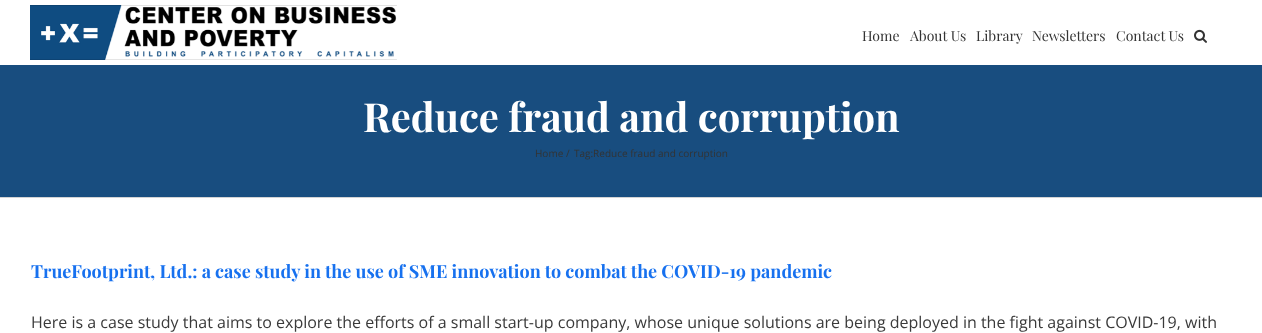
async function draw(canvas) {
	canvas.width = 1262;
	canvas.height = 333;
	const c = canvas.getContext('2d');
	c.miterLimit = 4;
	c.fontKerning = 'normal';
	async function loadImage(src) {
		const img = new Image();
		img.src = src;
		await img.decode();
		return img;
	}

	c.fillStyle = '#fff';
	c.fillRect(0, 0, 1262, 333);
	c.drawImage(await loadImage('img1.png'), 30, 5, 367, 55);
	c.font = '14px Playfair Display';
	c.fillStyle = '#333';
	for (const [text, x, y] of [
		['Home', 862, 41],
		['About Us', 910, 41],
		['Library', 976, 41],
		['Newsletters', 1032, 41],
		['Contact Us', 1116, 41],
	]) {
		c.fillText(text, x, y);
	}
	c.drawImage(await loadImage('img2.png'), 1194, 29, 13, 14);
	c.fillStyle = '#184d7f';
	c.fillRect(0, 65, 1262, 132);
	c.fillStyle = '#d2d3d4';
	c.fillRect(0, 197, 1262, 1);
	c.font = 'bold 40px Playfair Display';
	c.fillStyle = '#fff';
	c.fillText('Reduce fraud and corruption', 363, 132);
	c.font = '10px Open Sans';
	c.fillStyle = '#333';
	for (const [text, x, y] of [
		['Home', 535, 157],
		['/', 566, 157],
		['Tag:Reduce fraud and corruption', 574, 157],
	]) {
		c.fillText(text, x, y);
	}
	c.font = 'bold 18px Playfair Display';
	c.fillStyle = '#1771ef';
	c.fillText('TrueFootprint, Ltd.: a case study in the use of SME innovation to combat the COVID-19 pandemic', 31, 278);
	c.font = '16px Open Sans';
	c.fillStyle = '#3a3a3a';
	c.fillText('Here is a case study that aims to explore the efforts of a small start-up company, whose unique solutions are being deployed in the fight against COVID-19, with', 31, 328);
}

draw(document.querySelector('canvas'));
